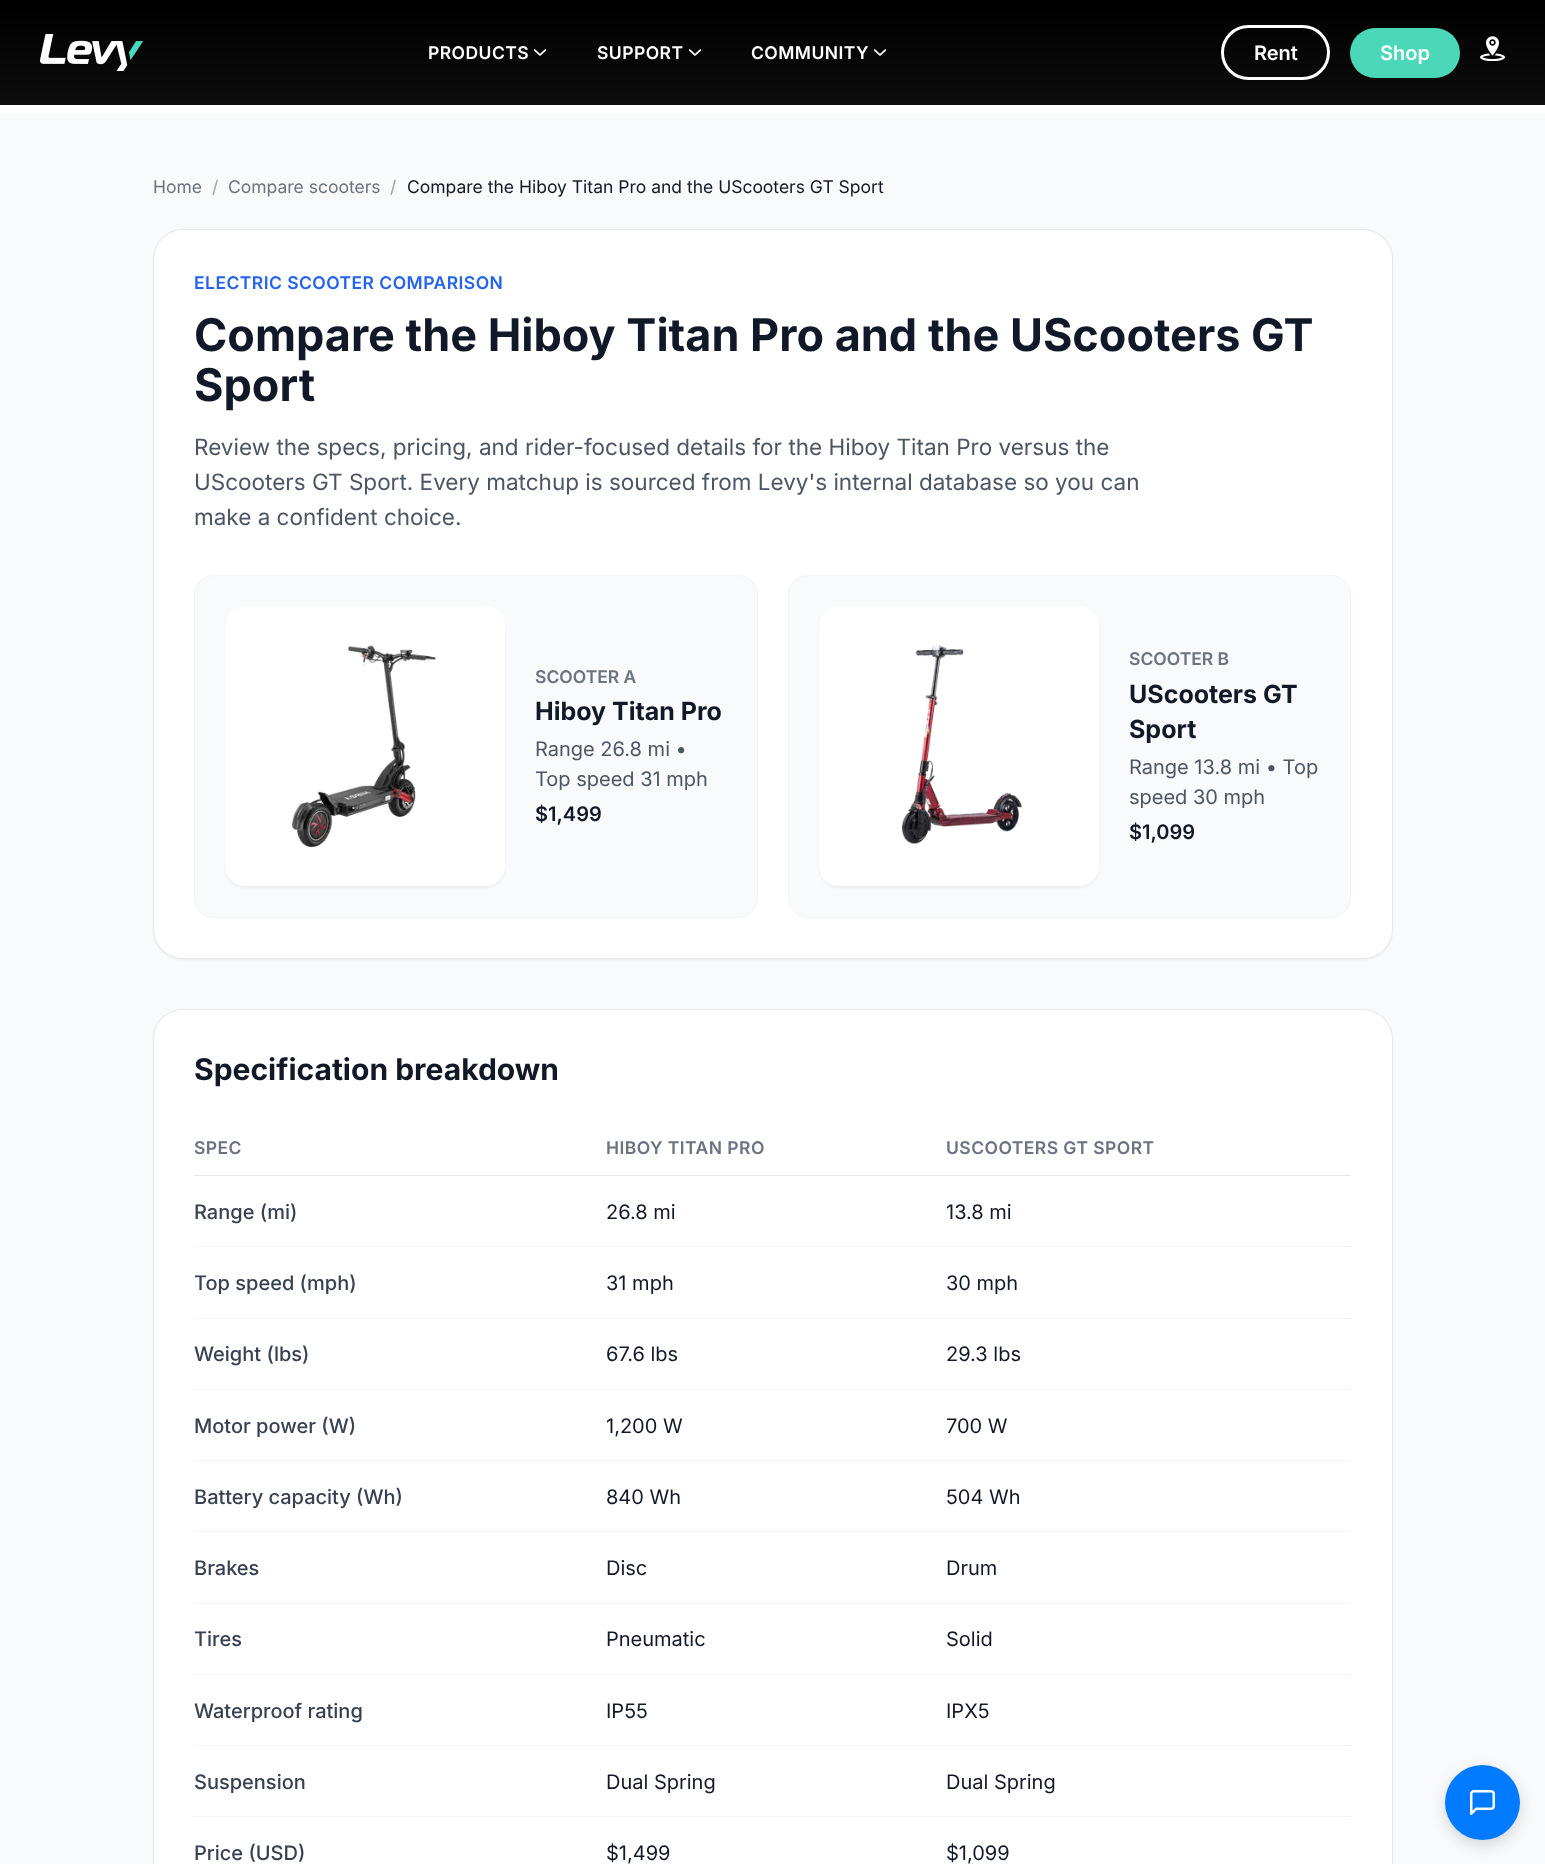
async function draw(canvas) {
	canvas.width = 1545;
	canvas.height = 1864;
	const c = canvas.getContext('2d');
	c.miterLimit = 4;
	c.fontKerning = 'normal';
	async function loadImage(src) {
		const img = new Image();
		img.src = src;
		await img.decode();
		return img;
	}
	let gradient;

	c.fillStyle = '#fff';
	c.fillRect(0, 0, 1545, 1864);
	gradient = c.createLinearGradient(773, 0, 773, 105);
	gradient.addColorStop(0, '#000');
	gradient.addColorStop(1, '#0d0d0d');
	c.fillStyle = gradient;
	c.fillRect(0, 0, 1545, 105);
	c.drawImage(await loadImage('img1.png'), 40, 34, 104, 37);
	c.letterSpacing = '0.45px';
	c.font = '600 17.5px Inter';
	c.fillStyle = '#fff';
	c.fillText('PRODUCTS', 428, 59);
	c.drawImage(await loadImage('img2.png'), 534, 49, 12, 7);
	c.fillText('SUPPORT', 597, 59);
	c.drawImage(await loadImage('img2.png'), 689, 49, 12, 7);
	c.fillText('COMMUNITY', 751, 59);
	c.drawImage(await loadImage('img2.png'), 874, 49, 12, 7);
	c.beginPath();
	c.roundRect(1222.5, 26.5, 106, 52, 26);
	c.strokeStyle = '#fff';
	c.lineWidth = 3;
	c.stroke();
	c.letterSpacing = '0px';
	c.font = '600 20px Inter';
	c.fillText('Rent', 1254, 60);
	c.fillStyle = '#4bd8b9';
	c.beginPath();
	c.roundRect(1350, 28, 110, 50, 25);
	c.fill();
	c.fillStyle = '#fff';
	c.fillText('Shop', 1380, 60);
	c.drawImage(await loadImage('img3.png'), 1480, 36, 25, 25);
	c.fillStyle = '#f9fafb';
	c.fillRect(0, 114, 1545, 1750);
	c.font = '17.5px Inter';
	c.fillStyle = '#6b7280';
	c.fillText('Home', 153, 193);
	c.fillStyle = '#9ca3af';
	c.fillText('/', 212, 193);
	c.fillStyle = '#6b7280';
	c.fillText('Compare scooters', 228, 193);
	c.fillStyle = '#9ca3af';
	c.fillText('/', 390, 193);
	c.fillStyle = '#111827';
	c.fillText('Compare the Hiboy Titan Pro and the UScooters GT Sport', 407, 193);
	c.fillStyle = '#0000000d';
	c.filter = 'blur(1px)';
	c.beginPath();
	c.roundRect(153, 230, 1240, 730, 30);
	c.fill();
	c.filter = 'none';
	c.fillStyle = '#fff';
	c.beginPath();
	c.roundRect(153.5, 229.5, 1239, 729, 29.5);
	c.fill();
	c.strokeStyle = '#e5e7eb';
	c.lineWidth = 1;
	c.stroke();
	c.letterSpacing = '0.45px';
	c.font = '600 17.5px Inter';
	c.fillStyle = '#2563eb';
	c.fillText('ELECTRIC SCOOTER COMPARISON', 194, 289);
	c.letterSpacing = '0px';
	c.font = 'bold 45px Inter';
	c.fillStyle = '#111827';
	c.fillText('Compare the Hiboy Titan Pro and the UScooters GT', 194, 351);
	c.fillText('Sport', 194, 401);
	c.font = '22.5px Inter';
	c.fillStyle = '#4b5563';
	for (const [text, x, y] of [
		['Review the specs, pricing, and rider-focused details for the Hiboy Titan Pro versus the', 194, 455],
		['UScooters GT Sport. Every matchup is sourced from Levy\'s internal database so you can', 194, 490],
		['make a confident choice.', 194, 525],
	]) {
		c.fillText(text, x, y);
	}
	c.fillStyle = '#f9fafb';
	c.beginPath();
	c.roundRect(194.5, 575.5, 563, 342, 19.5);
	c.fill();
	c.strokeStyle = '#f3f4f6';
	c.stroke();
	c.fillStyle = '#0000000d';
	c.filter = 'blur(1px)';
	c.beginPath();
	c.roundRect(225, 608, 280, 280, 20);
	c.fill();
	c.filter = 'none';
	c.fillStyle = '#fff';
	c.beginPath();
	c.roundRect(225, 606, 280, 280, 20);
	c.fill();
	c.drawImage(await loadImage('img4.png'), 292, 645, 144, 203);
	c.font = '600 17.5px Inter';
	c.fillStyle = '#6b7280';
	c.fillText('SCOOTER A', 535, 683);
	c.font = 'bold 25px Inter';
	c.fillStyle = '#111827';
	c.fillText('Hiboy Titan Pro', 535, 720);
	c.font = '20px Inter';
	c.fillStyle = '#4b5563';
	c.fillText('Range 26.8 mi •', 535, 756);
	c.fillText('Top speed 31 mph', 535, 786);
	c.font = '600 20px Inter';
	c.fillStyle = '#111827';
	c.fillText('$1,499', 535, 821);
	c.fillStyle = '#f9fafb';
	c.beginPath();
	c.roundRect(788.5, 575.5, 562, 342, 19.5);
	c.fill();
	c.stroke();
	c.fillStyle = '#0000000d';
	c.filter = 'blur(1px)';
	c.beginPath();
	c.roundRect(819, 608, 280, 280, 20);
	c.fill();
	c.filter = 'none';
	c.fillStyle = '#fff';
	c.beginPath();
	c.roundRect(819, 606, 280, 280, 20);
	c.fill();
	c.drawImage(await loadImage('img5.png'), 901, 645, 122, 199);
	c.font = '600 17.5px Inter';
	c.fillStyle = '#6b7280';
	c.fillText('SCOOTER B', 1129, 665);
	c.font = 'bold 25px Inter';
	c.fillStyle = '#111827';
	c.fillText('UScooters GT', 1129, 703);
	c.fillText('Sport', 1129, 738);
	c.font = '20px Inter';
	c.fillStyle = '#4b5563';
	c.fillText('Range 13.8 mi • Top', 1129, 774);
	c.fillText('speed 30 mph', 1129, 804);
	c.font = '600 20px Inter';
	c.fillStyle = '#111827';
	c.fillText('$1,099', 1129, 839);
	c.fillStyle = '#0000000d';
	c.filter = 'blur(1px)';
	c.beginPath();
	c.roundRect(153, 1010, 1240, 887, 30);
	c.fill();
	c.filter = 'none';
	c.fillStyle = '#fff';
	c.beginPath();
	c.roundRect(153.5, 1009.5, 1239, 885, 29.5);
	c.fill();
	c.strokeStyle = '#e5e7eb';
	c.stroke();
	c.font = 'bold 30px Inter';
	c.fillStyle = '#111827';
	c.fillText('Specification breakdown', 194, 1080);
	c.letterSpacing = '0.45px';
	c.font = '600 17.5px Inter';
	c.fillStyle = '#6b7280';
	for (const [text, x, y] of [
		['SPEC', 194, 1154],
		['HIBOY TITAN PRO', 606, 1154],
		['USCOOTERS GT SPORT', 946, 1154],
	]) {
		c.fillText(text, x, y);
	}
	c.fillStyle = '#e5e7eb';
	c.fillRect(194, 1175, 1157, 1);
	c.letterSpacing = '0px';
	c.font = '500 20px Inter';
	c.fillStyle = '#374151';
	c.fillText('Range (mi)', 194, 1219);
	c.font = '20px Inter';
	c.fillStyle = '#111827';
	c.fillText('26.8 mi', 606, 1219);
	c.fillText('13.8 mi', 946, 1219);
	c.fillStyle = '#f3f4f6';
	c.fillRect(194, 1246, 1157, 1);
	c.font = '500 20px Inter';
	c.fillStyle = '#374151';
	c.fillText('Top speed (mph)', 194, 1290);
	c.font = '20px Inter';
	c.fillStyle = '#111827';
	c.fillText('31 mph', 606, 1290);
	c.fillText('30 mph', 946, 1290);
	c.fillStyle = '#f3f4f6';
	c.fillRect(194, 1318, 1157, 1);
	c.font = '500 20px Inter';
	c.fillStyle = '#374151';
	c.fillText('Weight (lbs)', 194, 1361);
	c.font = '20px Inter';
	c.fillStyle = '#111827';
	c.fillText('67.6 lbs', 606, 1361);
	c.fillText('29.3 lbs', 946, 1361);
	c.fillStyle = '#f3f4f6';
	c.fillRect(194, 1389, 1157, 1);
	c.font = '500 20px Inter';
	c.fillStyle = '#374151';
	c.fillText('Motor power (W)', 194, 1433);
	c.font = '20px Inter';
	c.fillStyle = '#111827';
	c.fillText('1,200 W', 606, 1433);
	c.fillText('700 W', 946, 1433);
	c.fillStyle = '#f3f4f6';
	c.fillRect(194, 1460, 1157, 1);
	c.font = '500 20px Inter';
	c.fillStyle = '#374151';
	c.fillText('Battery capacity (Wh)', 194, 1504);
	c.font = '20px Inter';
	c.fillStyle = '#111827';
	c.fillText('840 Wh', 606, 1504);
	c.fillText('504 Wh', 946, 1504);
	c.fillStyle = '#f3f4f6';
	c.fillRect(194, 1531, 1157, 1);
	c.font = '500 20px Inter';
	c.fillStyle = '#374151';
	c.fillText('Brakes', 194, 1575);
	c.font = '20px Inter';
	c.fillStyle = '#111827';
	c.fillText('Disc', 606, 1575);
	c.fillText('Drum', 946, 1575);
	c.fillStyle = '#f3f4f6';
	c.fillRect(194, 1603, 1157, 1);
	c.font = '500 20px Inter';
	c.fillStyle = '#374151';
	c.fillText('Tires', 194, 1646);
	c.font = '20px Inter';
	c.fillStyle = '#111827';
	c.fillText('Pneumatic', 606, 1646);
	c.fillText('Solid', 946, 1646);
	c.fillStyle = '#f3f4f6';
	c.fillRect(194, 1674, 1157, 1);
	c.font = '500 20px Inter';
	c.fillStyle = '#374151';
	c.fillText('Waterproof rating', 194, 1718);
	c.font = '20px Inter';
	c.fillStyle = '#111827';
	c.fillText('IP55', 606, 1718);
	c.fillText('IPX5', 946, 1718);
	c.fillStyle = '#f3f4f6';
	c.fillRect(194, 1745, 1157, 1);
	c.font = '500 20px Inter';
	c.fillStyle = '#374151';
	c.fillText('Suspension', 194, 1789);
	c.font = '20px Inter';
	c.fillStyle = '#111827';
	c.fillText('Dual Spring', 606, 1789);
	c.fillText('Dual Spring', 946, 1789);
	c.fillStyle = '#f3f4f6';
	c.fillRect(194, 1816, 1157, 1);
	c.font = '500 20px Inter';
	c.fillStyle = '#374151';
	c.fillText('Price (USD)', 194, 1860);
	c.font = '20px Inter';
	c.fillStyle = '#111827';
	c.fillText('$1,499', 606, 1860);
	c.fillText('$1,099', 946, 1860);
	c.fillStyle = '#00000026';
	c.filter = 'blur(7.5px)';
	c.beginPath();
	c.roundRect(1445, 1770, 75, 75, 37.5);
	c.fill();
	c.filter = 'none';
	c.fillStyle = '#007bff';
	c.beginPath();
	c.arc(1482.5, 1802.5, 37.5, 0, 2 * Math.PI);
	c.fill();
	c.drawImage(await loadImage('img6.png'), 1470, 1790, 25, 25);
}

draw(document.querySelector('canvas'));
